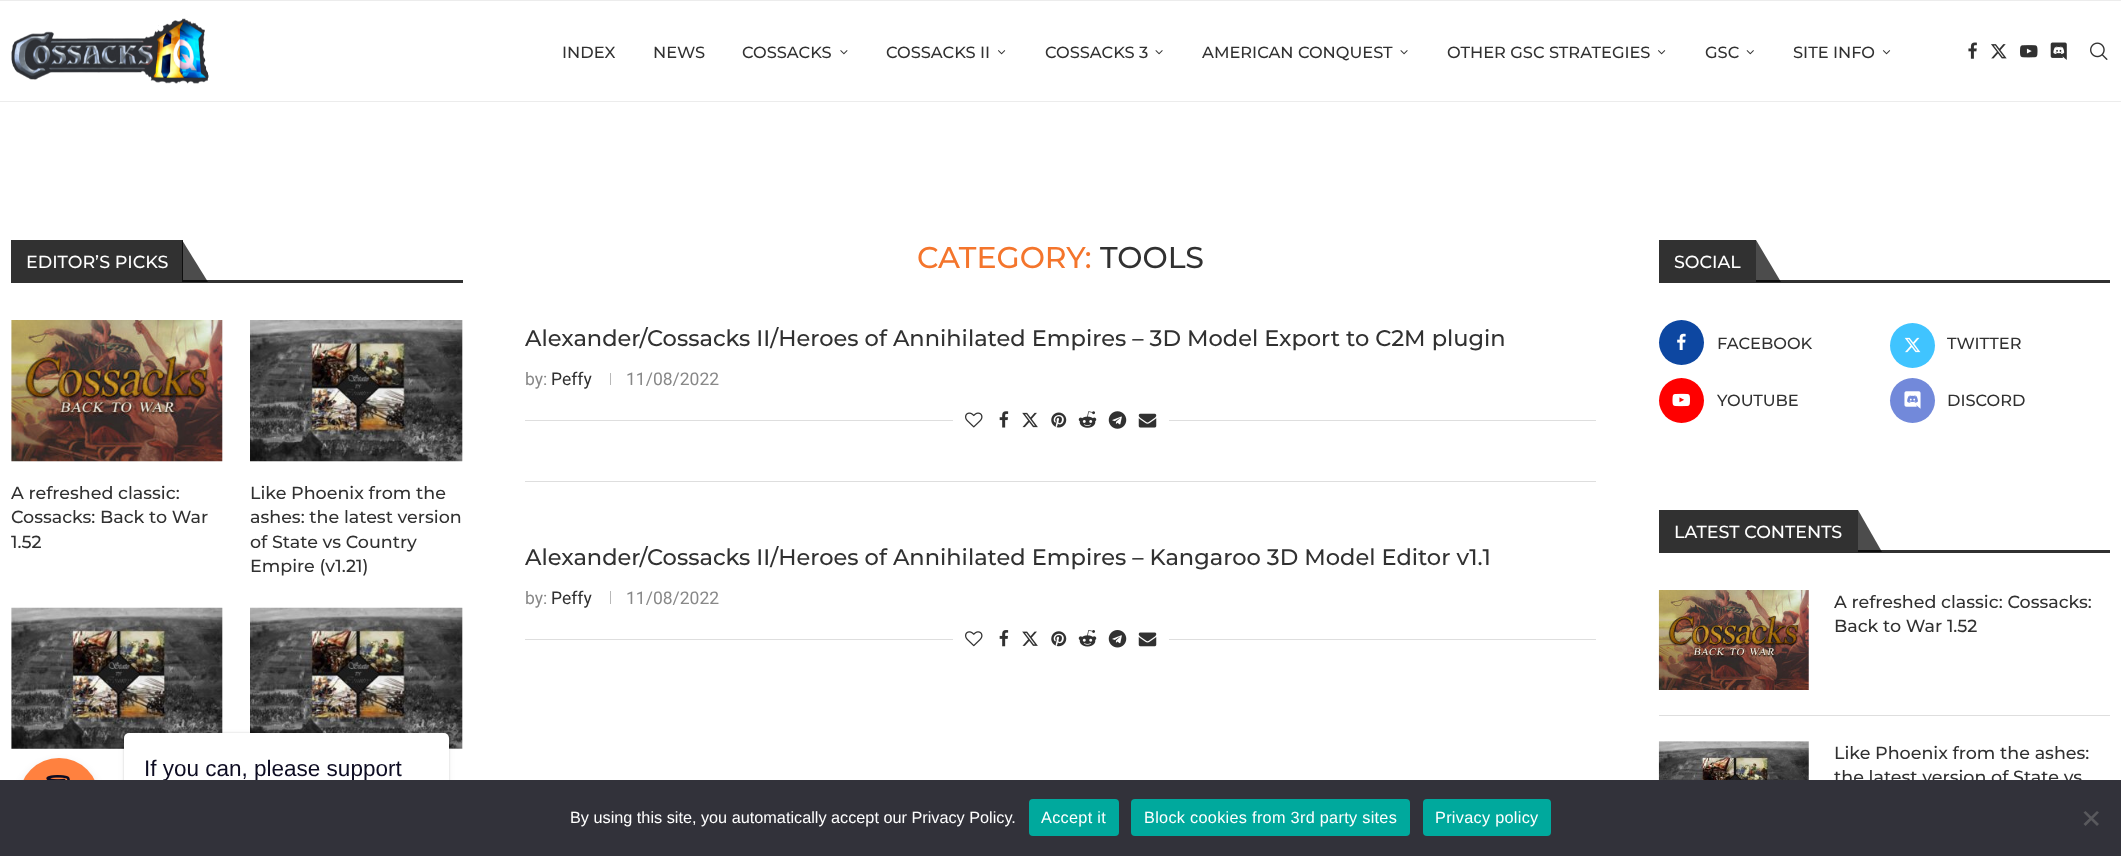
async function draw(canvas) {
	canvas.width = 2121;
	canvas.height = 856;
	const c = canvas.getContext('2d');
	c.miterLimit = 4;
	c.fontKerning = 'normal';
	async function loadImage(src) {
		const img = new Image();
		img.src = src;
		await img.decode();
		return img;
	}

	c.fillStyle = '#fff';
	c.fillRect(0, 0, 2121, 856);
	c.fillStyle = '#ececec';
	c.fillRect(0, 0, 2121, 1);
	c.fillRect(0, 101, 2121, 1);
	c.drawImage(await loadImage('img1.png'), 11, 18, 198, 66);
	c.font = '500 16.25px Montserrat';
	c.fillStyle = '#313131';
	for (const [text, x, y] of [
		['INDEX', 562, 58],
		['NEWS', 653, 58],
		['COSSACKS', 742, 58],
	]) {
		c.fillText(text, x, y);
	}
	c.drawImage(await loadImage('img2.png'), 840, 50, 8, 5);
	c.fillText('COSSACKS II', 886, 58);
	c.drawImage(await loadImage('img3.png'), 998, 50, 8, 5);
	c.fillText('COSSACKS 3', 1045, 58);
	c.drawImage(await loadImage('img4.png'), 1155, 50, 8, 5);
	c.fillText('AMERICAN CONQUEST', 1202, 58);
	c.drawImage(await loadImage('img5.png'), 1400, 50, 8, 5);
	c.fillText('OTHER GSC STRATEGIES', 1447, 58);
	c.drawImage(await loadImage('img6.png'), 1658, 50, 8, 5);
	c.fillText('GSC', 1705, 58);
	c.drawImage(await loadImage('img7.png'), 1746, 50, 8, 5);
	c.fillText('SITE INFO', 1793, 58);
	c.drawImage(await loadImage('img8.png'), 1882, 50, 9, 5);
	c.drawImage(await loadImage('img9.png'), 1968, 42, 9, 17);
	c.drawImage(await loadImage('img10.png'), 1991, 44, 16, 15);
	c.drawImage(await loadImage('img11.png'), 2020, 45, 18, 13);
	c.drawImage(await loadImage('img12.png'), 2050, 42, 17, 18);
	c.drawImage(await loadImage('img13.png'), 2090, 42, 18, 18);
	c.fillRect(183, 280, 280, 3);
	c.fillRect(11, 240, 172, 43);
	c.font = '500 17.5px Montserrat';
	c.fillStyle = '#fff';
	c.fillText('EDITOR’S PICKS', 26, 268);
	c.fillStyle = '#000000b3';
	c.beginPath();
	c.moveTo(208, 282);
	c.lineTo(182, 282);
	c.lineTo(182, 240);
	c.closePath();
	c.fill();
	c.fillStyle = '#f5f5f5';
	c.fillRect(11, 320, 212, 141);
	c.drawImage(await loadImage('img14.png'), 11, 320, 212, 142);
	c.fillStyle = '#313131';
	c.fillText('A refreshed classic:', 11, 499);
	c.fillText('Cossacks: Back to War', 11, 523);
	c.save();
	c.beginPath();
	c.rect(11, 481, 212, 77);
	c.clip();
	c.fillText('1.52', 11, 548);
	c.restore();
	c.fillStyle = '#f5f5f5';
	c.fillRect(462, 320, 1, 141);
	c.drawImage(await loadImage('img15.png'), 250, 320, 213, 142);
	c.fillStyle = '#313131';
	for (const [text, x, y] of [
		['Like Phoenix from the', 250, 499],
		['ashes: the latest version', 250, 523],
		['of State vs Country', 250, 548],
		['Empire (v1.21)', 250, 572],
	]) {
		c.fillText(text, x, y);
	}
	c.fillStyle = '#f5f5f5';
	c.fillRect(11, 608, 212, 141);
	c.drawImage(await loadImage('img16.png'), 11, 607, 212, 142);
	c.fillRect(449, 608, 14, 141);
	c.drawImage(await loadImage('img17.png'), 250, 607, 213, 142);
	c.font = '500 30px Montserrat';
	c.fillStyle = '#f4752c';
	c.fillText('CATEGORY:', 917, 268);
	c.fillStyle = '#313131';
	c.fillText('TOOLS', 1100, 268);
	c.fillStyle = '#dedede';
	c.fillRect(525, 481, 1071, 1);
	c.font = '500 22.5px Montserrat';
	c.fillStyle = '#313131';
	c.fillText('Alexander/Cossacks II/Heroes of Annihilated Empires – 3D Model Export to C2M plugin', 525, 346);
	c.font = '17.5px Roboto';
	c.fillStyle = '#888';
	c.fillText('by:', 525, 385);
	c.fillStyle = '#313131';
	c.fillText('Peffy', 551, 385);
	c.fillStyle = '#b8b8b8';
	c.fillRect(610, 373, 1, 12);
	c.fillStyle = '#888';
	c.fillText('11/08/2022', 626, 385);
	c.fillStyle = '#dedede';
	c.fillRect(525, 420, 1071, 1);
	c.fillStyle = '#fff';
	c.fillRect(953, 420, 216, 1);
	c.drawImage(await loadImage('img18.png'), 965, 412, 18, 16);
	c.drawImage(await loadImage('img19.png'), 999, 411, 10, 17);
	c.drawImage(await loadImage('img20.png'), 1022, 412, 16, 16);
	c.drawImage(await loadImage('img21.png'), 1051, 412, 16, 16);
	c.drawImage(await loadImage('img22.png'), 1078, 411, 19, 17);
	c.drawImage(await loadImage('img23.png'), 1108, 411, 19, 18);
	c.drawImage(await loadImage('img24.png'), 1138, 413, 19, 15);
	c.font = '500 22.5px Montserrat';
	c.fillStyle = '#313131';
	c.fillText('Alexander/Cossacks II/Heroes of Annihilated Empires – Kangaroo 3D Model Editor v1.1', 525, 565);
	c.font = '17.5px Roboto';
	c.fillStyle = '#888';
	c.fillText('by:', 525, 604);
	c.fillStyle = '#313131';
	c.fillText('Peffy', 551, 604);
	c.fillStyle = '#b8b8b8';
	c.fillRect(610, 591, 1, 13);
	c.fillStyle = '#888';
	c.fillText('11/08/2022', 626, 604);
	c.fillStyle = '#dedede';
	c.fillRect(525, 639, 1071, 1);
	c.fillStyle = '#fff';
	c.fillRect(953, 639, 216, 1);
	c.drawImage(await loadImage('img25.png'), 965, 631, 18, 16);
	c.drawImage(await loadImage('img26.png'), 999, 630, 10, 17);
	c.drawImage(await loadImage('img27.png'), 1022, 631, 16, 15);
	c.drawImage(await loadImage('img28.png'), 1051, 631, 16, 16);
	c.drawImage(await loadImage('img29.png'), 1078, 630, 19, 17);
	c.drawImage(await loadImage('img30.png'), 1108, 630, 19, 18);
	c.drawImage(await loadImage('img31.png'), 1138, 632, 19, 15);
	c.fillStyle = '#313131';
	c.fillRect(1756, 280, 354, 3);
	c.fillRect(1659, 240, 97, 43);
	c.font = '500 17.5px Montserrat';
	c.fillStyle = '#fff';
	c.fillText('SOCIAL', 1674, 268);
	c.fillStyle = '#000000b3';
	c.beginPath();
	c.moveTo(1781, 282);
	c.lineTo(1756, 282);
	c.lineTo(1756, 240);
	c.closePath();
	c.fill();
	c.fillStyle = '#0d47a1';
	c.beginPath();
	c.arc(1681.5, 342.5, 22.5, 0, 2 * Math.PI);
	c.fill();
	c.drawImage(await loadImage('img32.png'), 1677, 333, 9, 17);
	c.font = '500 16.25px Montserrat';
	c.fillStyle = '#313131';
	c.fillText('FACEBOOK', 1717, 349);
	c.fillStyle = '#40c4ff';
	c.beginPath();
	c.arc(1912.5, 345.5, 22.5, 0, 2 * Math.PI);
	c.fill();
	c.drawImage(await loadImage('img33.png'), 1904, 337, 17, 16);
	c.fillStyle = '#313131';
	c.fillText('TWITTER', 1947, 349);
	c.fillStyle = '#f00';
	c.beginPath();
	c.arc(1681.5, 400.5, 22.5, 0, 2 * Math.PI);
	c.fill();
	c.drawImage(await loadImage('img34.png'), 1672, 393, 18, 14);
	c.fillStyle = '#313131';
	c.fillText('YOUTUBE', 1717, 406);
	c.fillStyle = '#7289da';
	c.beginPath();
	c.arc(1912.5, 400.5, 22.5, 0, 2 * Math.PI);
	c.fill();
	c.drawImage(await loadImage('img35.png'), 1904, 391, 17, 18);
	c.fillStyle = '#313131';
	c.fillText('DISCORD', 1947, 406);
	c.fillRect(1858, 550, 252, 3);
	c.fillRect(1659, 510, 199, 43);
	c.font = '500 17.5px Montserrat';
	c.fillStyle = '#fff';
	c.fillText('LATEST CONTENTS', 1674, 538);
	c.fillStyle = '#000000b3';
	c.beginPath();
	c.moveTo(1882, 552);
	c.lineTo(1858, 552);
	c.lineTo(1858, 510);
	c.closePath();
	c.fill();
	c.fillStyle = '#dedede';
	c.fillRect(1659, 715, 451, 1);
	c.drawImage(await loadImage('img36.png'), 1658, 590, 151, 100);
	c.fillStyle = '#313131';
	c.fillText('A refreshed classic: Cossacks:', 1834, 608);
	c.fillText('Back to War 1.52', 1834, 632);
	c.fillStyle = '#f5f5f5';
	c.fillRect(1659, 741, 150, 39);
	c.drawImage(await loadImage('img37.png'), 1658, 741, 151, 39);
	c.fillStyle = '#313131';
	c.fillText('Like Phoenix from the ashes:', 1834, 759);
	c.fillText('the latest version of State vs', 1834, 783);
	c.fillStyle = '#00000026';
	c.filter = 'blur(5px)';
	c.beginPath();
	c.roundRect(19, 763, 80, 80, 40);
	c.fill();
	c.filter = 'none';
	c.fillStyle = '#ff813f';
	c.beginPath();
	c.arc(59, 798, 40, 0, 2 * Math.PI);
	c.fill();
	c.drawImage(await loadImage('img38.png'), 46, 775, 24, 5);
	c.fillStyle = '#00000026';
	c.filter = 'blur(1px)';
	c.beginPath();
	c.roundRect(124, 733, 325, 107, 5);
	c.fill();
	c.filter = 'none';
	c.fillStyle = '#0000000d';
	c.filter = 'blur(3px)';
	c.beginPath();
	c.roundRect(124, 735, 325, 108, 5);
	c.fill();
	c.filter = 'none';
	c.fillStyle = '#fff';
	c.beginPath();
	c.roundRect(124, 733, 325, 107, 5);
	c.fill();
	c.font = '22.5px Liberation Sans';
	c.fillStyle = '#0d0c22';
	c.fillText('If you can, please support', 144, 776);
	c.fillStyle = '#32323a';
	c.fillRect(0, 780, 2121, 76);
	c.font = '16.25px Liberation Sans';
	c.fillStyle = '#fff';
	c.fillText('By using this site, you automatically accept our Privacy Policy.', 570, 823);
	c.fillStyle = '#00a99d';
	c.beginPath();
	c.roundRect(1029, 799, 90, 37, 4);
	c.fill();
	c.letterSpacing = '0.3px';
	c.fillStyle = '#fff';
	c.fillText('Accept it', 1041, 823);
	c.fillStyle = '#00a99d';
	c.beginPath();
	c.roundRect(1131, 799, 279, 37, 4);
	c.fill();
	c.fillStyle = '#fff';
	c.fillText('Block cookies from 3rd party sites', 1144, 823);
	c.fillStyle = '#00a99d';
	c.beginPath();
	c.roundRect(1423, 799, 128, 37, 4);
	c.fill();
	c.fillStyle = '#fff';
	c.fillText('Privacy policy', 1435, 823);
	c.fillStyle = '#59595d';
	c.beginPath();
	c.moveTo(2097, 811);
	c.lineTo(2099, 812.5);
	c.lineTo(2085.5, 826);
	c.lineTo(2083.5, 824);
	c.closePath();
	c.fill();
	c.beginPath();
	c.moveTo(2083.5, 812.5);
	c.lineTo(2085.5, 811);
	c.lineTo(2099, 824);
	c.lineTo(2097, 826);
	c.closePath();
	c.fill();
}

draw(document.querySelector('canvas'));
